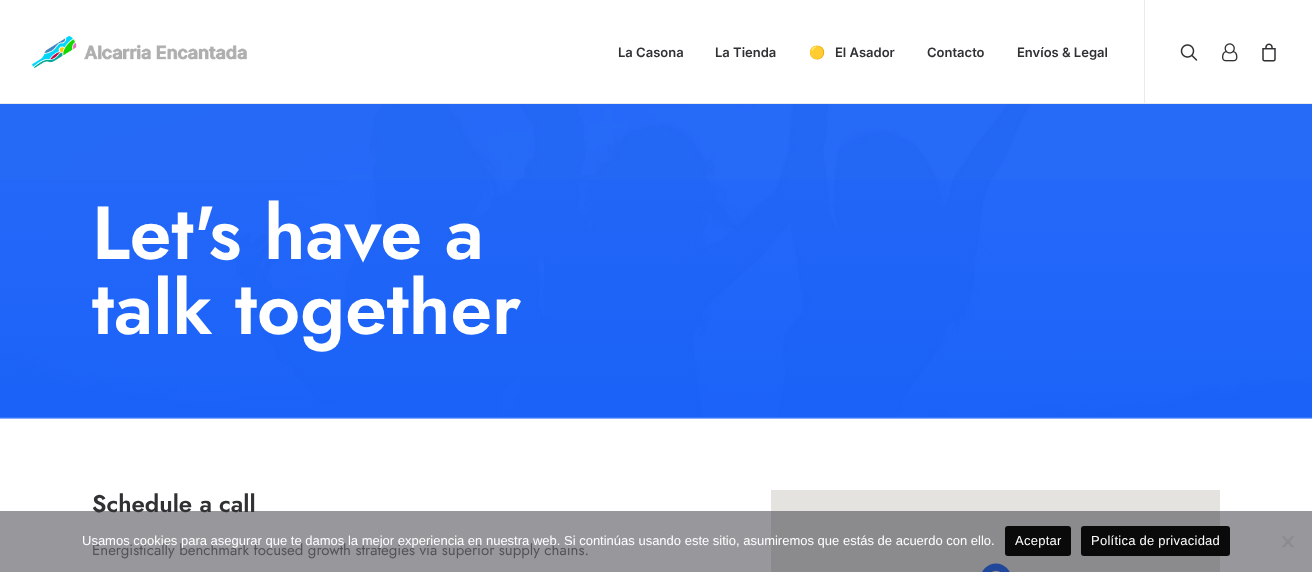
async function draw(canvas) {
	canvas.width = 1312;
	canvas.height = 572;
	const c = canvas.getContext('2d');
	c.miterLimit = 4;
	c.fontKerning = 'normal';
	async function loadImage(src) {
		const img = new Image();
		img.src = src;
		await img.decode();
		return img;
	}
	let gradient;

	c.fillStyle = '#fff';
	c.fillRect(0, 0, 1312, 572);
	c.drawImage(await loadImage('img1.png'), 32, 36, 215, 32);
	c.font = '600 13px Inter';
	c.fillStyle = '#303133';
	c.fillText('La Casona', 618, 57);
	c.fillText('La Tienda', 715, 57);
	c.font = 'bold 13px Noto Color Emoji';
	c.fillText('🟡', 809, 57);
	c.font = '600 13px Inter';
	for (const [text, x, y] of [
		['El Asador', 835, 57],
		['Contacto', 927, 57],
		['Envíos & Legal', 1017, 57],
	]) {
		c.fillText(text, x, y);
	}
	c.fillStyle = '#eaeaea';
	c.fillRect(0, 103, 1312, 1);
	c.fillRect(1144, 0, 1, 104);
	c.drawImage(await loadImage('img2.png'), 1180, 44, 18, 17);
	c.drawImage(await loadImage('img3.png'), 1222, 43, 16, 19);
	c.drawImage(await loadImage('img4.png'), 1262, 43, 14, 19);
	c.drawImage(await loadImage('img5.png'), 0, 104, 1312, 314);
	gradient = c.createLinearGradient(656, 105, 656, 419);
	gradient.addColorStop(0, '#115cfa00');
	gradient.addColorStop(1, '#115cfa80');
	c.fillStyle = gradient;
	c.fillRect(0, 180, 1312, 239);
	c.font = '600 75px Jost';
	c.fillStyle = '#fff';
	c.fillText('Let\'s have a', 92, 259);
	c.fillText('talk together', 92, 334);
	c.font = '600 24px Jost';
	c.fillStyle = '#303133';
	c.fillText('Schedule a call', 92, 512);
	c.font = '15px Jost';
	c.fillStyle = '#777';
	c.fillText('Energistically benchmark focused growth strategies via superior supply chains.', 92, 555);
	c.fillStyle = '#e5e3df';
	c.fillRect(771, 490, 449, 82);
	c.drawImage(await loadImage('img6.png'), 982, 563, 28, 9);
	c.fillStyle = '#32323a80';
	c.fillRect(0, 511, 1312, 61);
	c.font = '13px Liberation Sans';
	c.fillStyle = '#fff';
	c.fillText('Usamos cookies para asegurar que te damos la mejor experiencia en nuestra web. Si continúas usando este sitio, asumiremos que estás de acuerdo con ello.', 82, 545);
	c.fillStyle = '#0a0a0a';
	c.beginPath();
	c.roundRect(1005, 526, 66, 30, 3);
	c.fill();
	c.letterSpacing = '0.25px';
	c.fillStyle = '#fff';
	c.fillText('Aceptar', 1015, 545);
	c.fillStyle = '#0a0a0a';
	c.beginPath();
	c.roundRect(1081, 526, 149, 30, 3);
	c.fill();
	c.fillStyle = '#fff';
	c.fillText('Política de privacidad', 1091, 545);
	c.fillStyle = '#8c8c8e';
	c.beginPath();
	c.moveTo(1292.5, 535.5);
	c.lineTo(1294, 537);
	c.lineTo(1283.5, 548);
	c.lineTo(1282, 546.5);
	c.closePath();
	c.fill();
	c.beginPath();
	c.moveTo(1282, 537);
	c.lineTo(1283.5, 535.5);
	c.lineTo(1294, 546.5);
	c.lineTo(1292.5, 548);
	c.closePath();
	c.fill();
}

draw(document.querySelector('canvas'));
